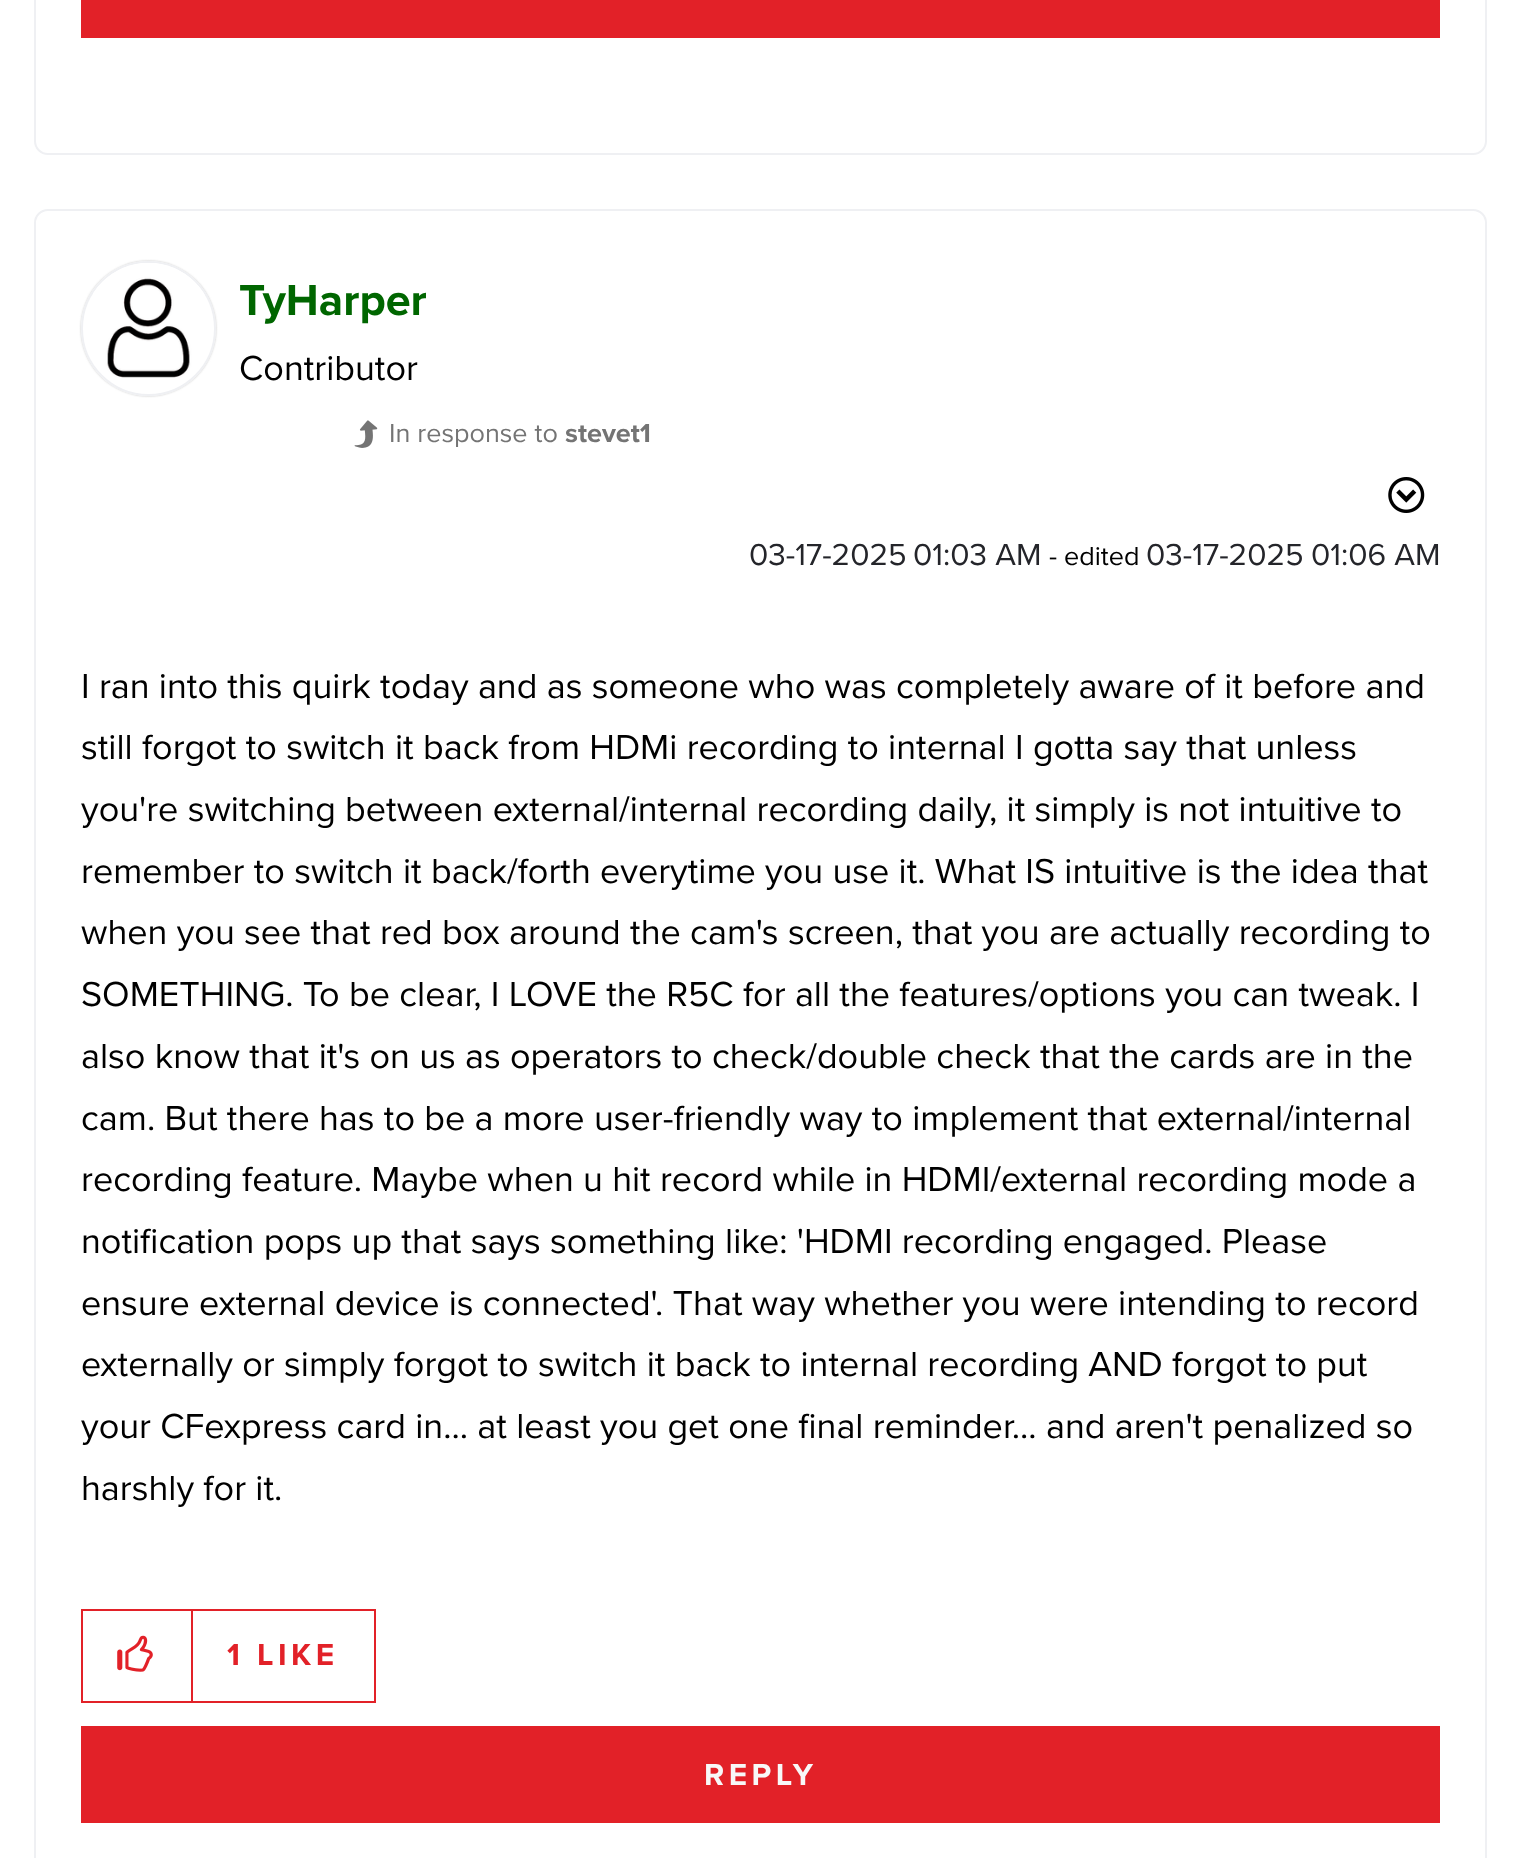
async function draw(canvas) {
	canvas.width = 1519;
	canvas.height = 1858;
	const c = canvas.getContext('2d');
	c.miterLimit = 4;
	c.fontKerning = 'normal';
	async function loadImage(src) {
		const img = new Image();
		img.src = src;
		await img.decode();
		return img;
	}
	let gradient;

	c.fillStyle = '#fff';
	c.fillRect(0, 0, 1519, 1858);
	c.beginPath();
	c.roundRect(35, -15, 1451, 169, 13);
	c.strokeStyle = '#eff0f3';
	c.lineWidth = 2;
	c.stroke();
	gradient = c.createLinearGradient(472, 1029, -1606, -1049);
	gradient.addColorStop(0.5, '#e22128');
	gradient.addColorStop(0.5, '#b8181e');
	c.fillStyle = gradient;
	c.fillRect(81, 0, 1359, 36);
	gradient = c.createLinearGradient(472, 1121, -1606, -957);
	gradient.addColorStop(0.5, '#e22128');
	gradient.addColorStop(0.5, '#b8181e');
	c.fillStyle = gradient;
	c.fillRect(81, 36, 1359, 2);
	c.beginPath();
	c.roundRect(35, 210, 1451, 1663, 13);
	c.stroke();
	c.save();
	c.beginPath();
	c.moveTo(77, 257);
	c.lineTo(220, 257);
	c.lineTo(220, 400);
	c.lineTo(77, 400);
	c.closePath();
	c.moveTo(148.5, 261);
	c.bezierCurveTo(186, 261, 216, 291, 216, 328.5);
	c.bezierCurveTo(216, 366, 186, 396, 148.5, 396);
	c.bezierCurveTo(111, 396, 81, 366, 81, 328.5);
	c.bezierCurveTo(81, 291, 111, 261, 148.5, 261);
	c.closePath();
	c.clip('evenodd');
	c.fillStyle = '#c4c4c4';
	c.filter = 'blur(1px)';
	c.beginPath();
	c.roundRect(81, 261, 135, 135, 67.5);
	c.fill();
	c.filter = 'none';
	c.restore();
	c.beginPath();
	c.arc(148.5, 328.5, 66.5, 0, 2 * Math.PI);
	c.stroke();
	c.drawImage(await loadImage('img1.png'), 93, 263, 112, 115);
	c.font = 'bold 45px Proxima Nova';
	c.fillStyle = '#060';
	c.fillText('TyHarper', 239, 315);
	c.font = '36px Proxima Nova';
	c.fillStyle = '#000';
	c.fillText('Contributor', 239, 380);
	c.drawImage(await loadImage('img2.png'), 354, 420, 24, 28);
	c.font = '27px Proxima Nova';
	c.fillStyle = '#747474';
	c.fillText('In response to', 389, 442);
	c.font = 'bold 27px Proxima Nova';
	c.fillText('stevet1', 565, 442);
	c.drawImage(await loadImage('img3.png'), 1388, 477, 37, 36);
	c.font = '31.5px Proxima Nova';
	c.fillStyle = '#24252a';
	c.fillText('03-17-2025', 749, 565);
	c.fillText('01:03 AM', 913, 565);
	c.font = '27px Proxima Nova';
	c.fillStyle = '#000';
	c.fillText('- edited', 1049, 565);
	c.font = '31.5px Proxima Nova';
	c.fillStyle = '#24252a';
	c.fillText('03-17-2025', 1146, 565);
	c.fillText('01:06 AM', 1311, 565);
	c.font = '36px Proxima Nova';
	c.fillStyle = '#000';
	for (const [text, x, y] of [
		['I ran into this quirk today and as someone who was completely aware of it before and', 81, 698],
		['still forgot to switch it back from HDMi recording to internal I gotta say that unless', 81, 759],
		['you\'re switching between external/internal recording daily, it simply is not intuitive to', 81, 821],
		['remember to switch it back/forth everytime you use it. What IS intuitive is the idea that', 81, 883],
		['when you see that red box around the cam\'s screen, that you are actually recording to', 81, 944],
		['SOMETHING. To be clear, I LOVE the R5C for all the features/options you can tweak. I', 81, 1006],
		['also know that it\'s on us as operators to check/double check that the cards are in the', 81, 1068],
		['cam. But there has to be a more user-friendly way to implement that external/internal', 81, 1130],
		['recording feature. Maybe when u hit record while in HDMI/external recording mode a', 81, 1191],
		['notification pops up that says something like: \'HDMI recording engaged. Please', 81, 1253],
		['ensure external device is connected\'. That way whether you were intending to record', 81, 1315],
		['externally or simply forgot to switch it back to internal recording AND forgot to put', 81, 1376],
		['your CFexpress card in... at least you get one final reminder... and aren\'t penalized so', 81, 1438],
		['harshly for it.', 81, 1500],
	]) {
		c.fillText(text, x, y);
	}
	c.strokeStyle = '#e22128';
	c.strokeRect(82, 1610, 293, 92);
	c.fillStyle = '#e22128';
	c.fillRect(191, 1611, 2, 90);
	c.drawImage(await loadImage('img4.png'), 117, 1635, 36, 37);
	c.letterSpacing = '4.5px';
	c.font = 'bold 31.5px Proxima Nova';
	c.fillText('1 LIKE', 227, 1665);
	gradient = c.createLinearGradient(472, 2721, -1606, 643);
	gradient.addColorStop(0.5, '#e22128');
	gradient.addColorStop(0.5, '#b8181e');
	c.fillStyle = gradient;
	c.fillRect(81, 1726, 1359, 2);
	gradient = c.createLinearGradient(472, 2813, -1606, 735);
	gradient.addColorStop(0.5, '#e22128');
	gradient.addColorStop(0.5, '#b8181e');
	c.fillStyle = gradient;
	c.fillRect(81, 1728, 1359, 92);
	gradient = c.createLinearGradient(472, 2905, -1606, 827);
	gradient.addColorStop(0.5, '#e22128');
	gradient.addColorStop(0.5, '#b8181e');
	c.fillStyle = gradient;
	c.fillRect(81, 1820, 1359, 3);
	c.fillStyle = '#f8f8f8';
	c.fillText('REPLY', 704, 1785);
}

draw(document.querySelector('canvas'));
